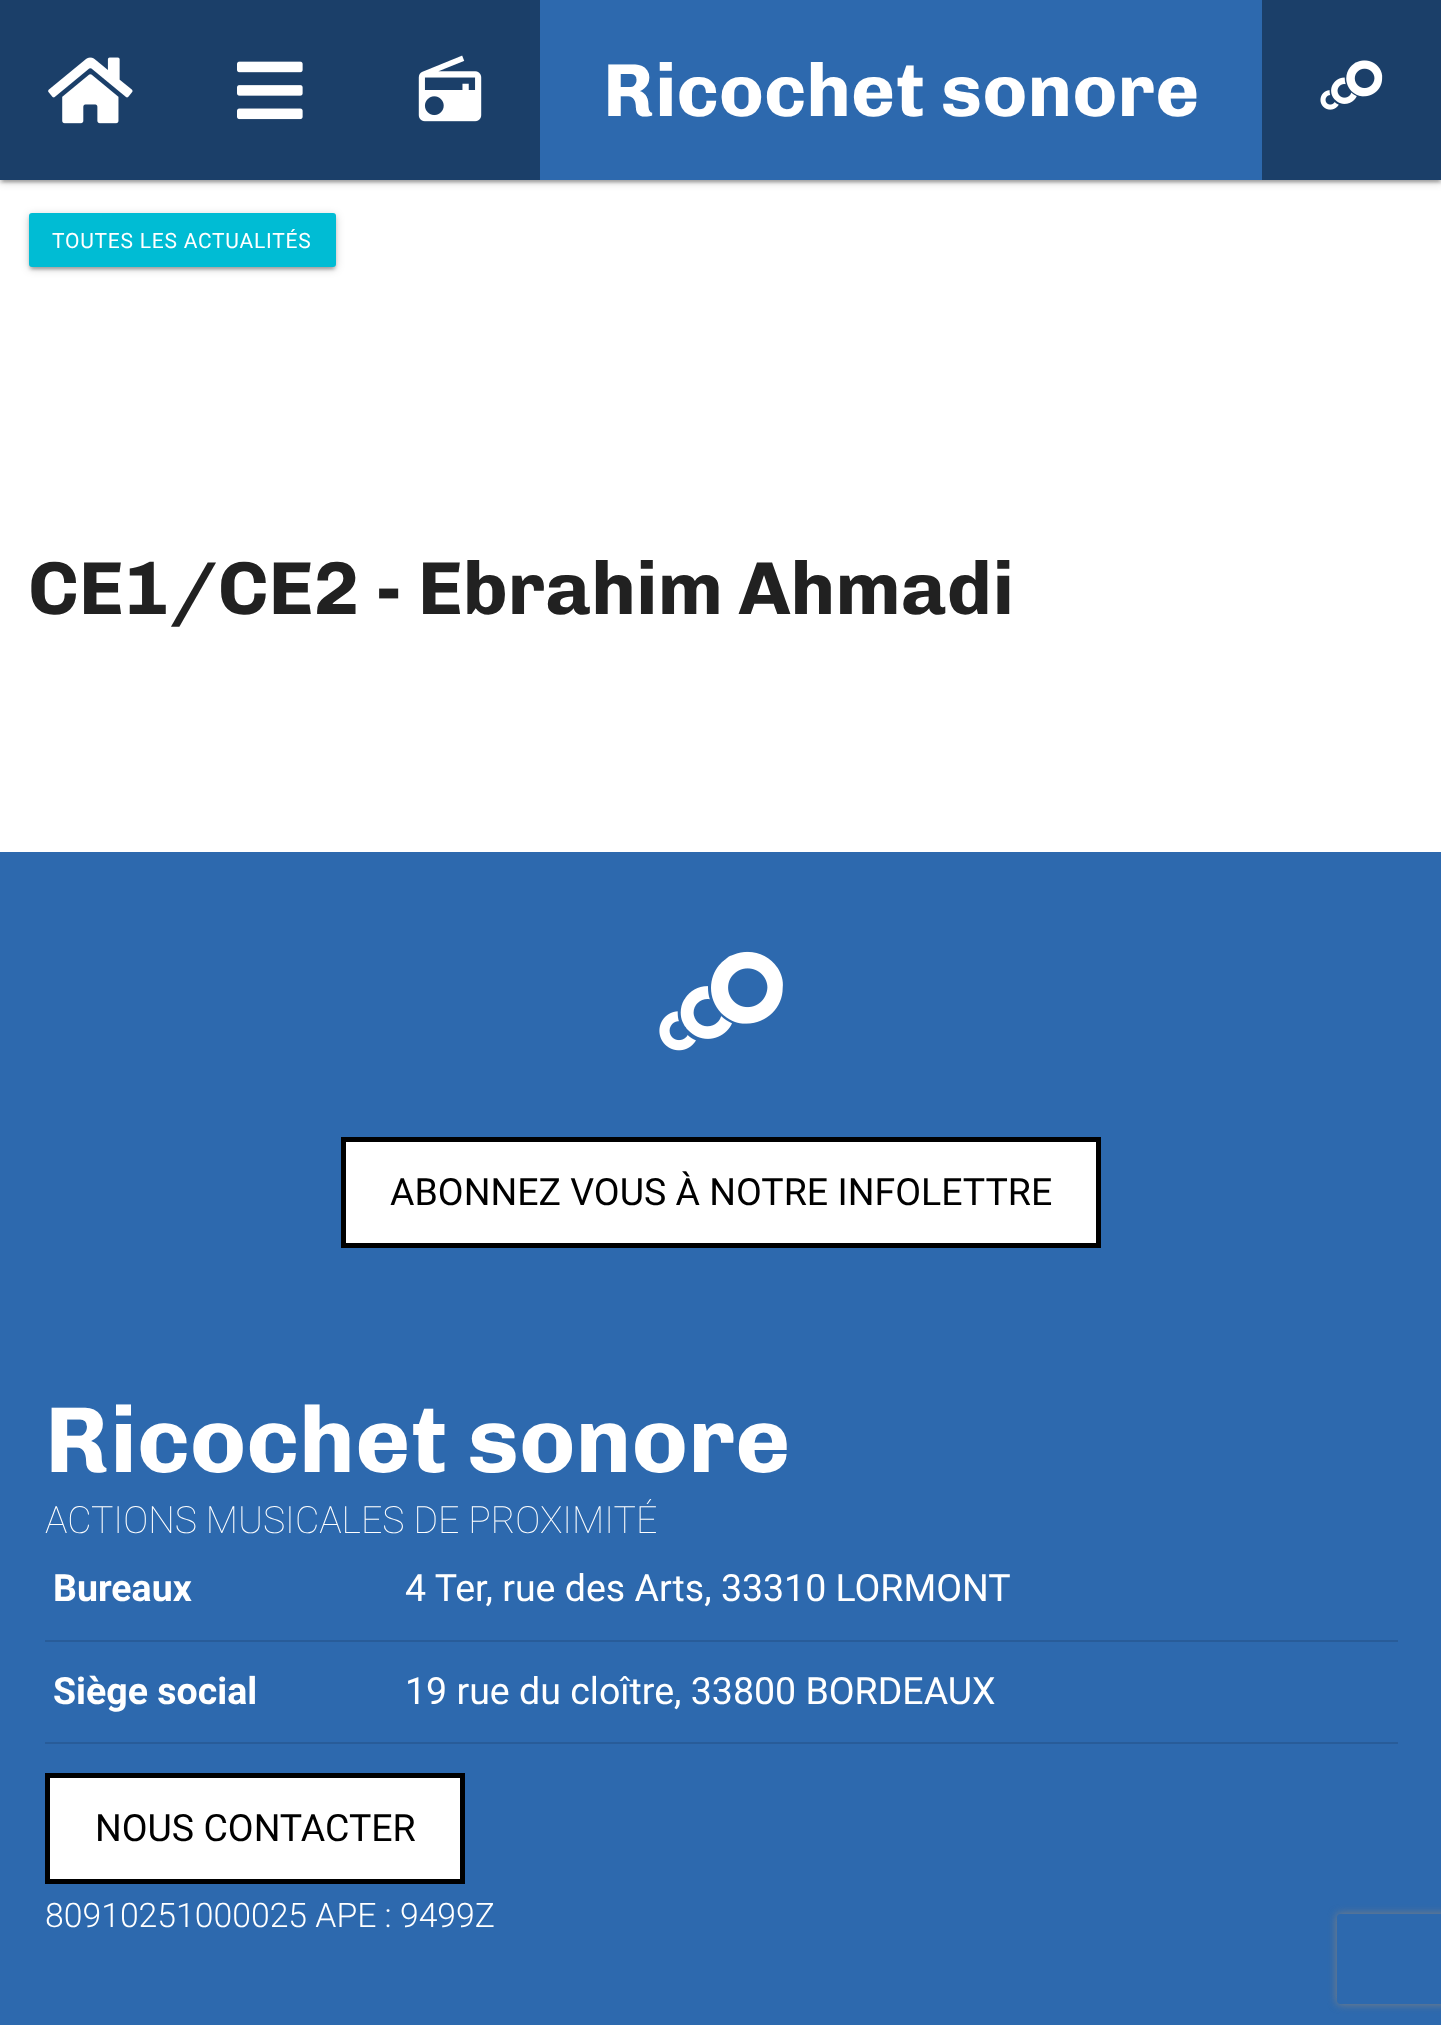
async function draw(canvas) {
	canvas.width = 1441;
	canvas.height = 2025;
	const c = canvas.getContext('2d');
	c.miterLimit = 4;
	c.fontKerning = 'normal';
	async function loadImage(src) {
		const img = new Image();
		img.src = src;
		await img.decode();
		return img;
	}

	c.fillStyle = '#fff';
	c.fillRect(0, 0, 1441, 2025);
	c.fillStyle = '#00000033';
	c.filter = 'blur(4px)';
	c.beginPath();
	c.rect(0, 2, 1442, 180);
	c.fill();
	c.filter = 'none';
	c.fillStyle = '#0000001f';
	c.filter = 'blur(1px)';
	c.beginPath();
	c.rect(3, 8, 1436, 174);
	c.fill();
	c.filter = 'none';
	c.fillStyle = '#00000024';
	c.filter = 'blur(1.5px)';
	c.beginPath();
	c.rect(0, 3, 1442, 180);
	c.fill();
	c.filter = 'none';
	c.fillStyle = '#2d69ae';
	c.fillRect(540, 0, 722, 180);
	c.fillStyle = '#1b3f69';
	c.fillRect(0, 0, 540, 180);
	c.drawImage(await loadImage('img1.png'), 48, 57, 85, 67);
	c.drawImage(await loadImage('img2.png'), 237, 61, 66, 59);
	c.drawImage(await loadImage('img3.png'), 418, 55, 64, 67);
	c.font = 'bold 75px Chivo';
	c.fillStyle = '#fff';
	c.fillText('Ricochet sonore', 603, 116);
	c.fillStyle = '#1b3f69';
	c.fillRect(1262, 0, 179, 180);
	c.drawImage(await loadImage('img4.png'), 1320, 60, 63, 50);
	c.fillStyle = '#00000033';
	c.filter = 'blur(4px)';
	c.beginPath();
	c.roundRect(29, 215, 307, 54, 3);
	c.fill();
	c.filter = 'none';
	c.fillStyle = '#0000001f';
	c.filter = 'blur(1px)';
	c.beginPath();
	c.rect(32, 221, 301, 48);
	c.fill();
	c.filter = 'none';
	c.fillStyle = '#00000024';
	c.filter = 'blur(1.5px)';
	c.beginPath();
	c.roundRect(29, 216, 307, 54, 3);
	c.fill();
	c.filter = 'none';
	c.fillStyle = '#00bcd4';
	c.beginPath();
	c.roundRect(29, 213, 307, 54, 3);
	c.fill();
	c.letterSpacing = '0.75px';
	c.font = '21px Roboto';
	c.fillStyle = '#fff';
	c.fillText('TOUTES LES ACTUALITÉS', 52, 248);
	c.letterSpacing = '0px';
	c.font = 'bold 75px Chivo';
	c.fillStyle = '#212121';
	c.fillText('CE1/CE2 - Ebrahim Ahmadi', 28, 614);
	c.fillStyle = '#2d69ae';
	c.fillRect(0, 852, 1441, 1173);
	c.drawImage(await loadImage('img5.png'), 659, 951, 124, 100);
	c.fillStyle = '#fff';
	c.beginPath();
	c.rect(343.5, 1139.5, 755, 106);
	c.fill();
	c.strokeStyle = '#000';
	c.lineWidth = 5;
	c.stroke();
	c.font = '37.5px Roboto';
	c.fillStyle = '#000';
	c.fillText('ABONNEZ VOUS À NOTRE INFOLETTRE', 390, 1205);
	c.font = 'bold 93.75px Chivo';
	c.fillStyle = '#fff';
	c.fillText('Ricochet sonore', 45, 1472);
	c.font = '100 37.5px Roboto';
	c.fillText('ACTIONS MUSICALES DE PROXIMITÉ', 45, 1533);
	c.fillStyle = '#285c99';
	c.fillRect(45, 1640, 1353, 2);
	c.font = 'bold 37.5px Roboto';
	c.fillStyle = '#fff';
	c.fillText('Bureaux', 53, 1601);
	c.font = '37.5px Roboto';
	c.fillText('4 Ter, rue des Arts, 33310 LORMONT', 405, 1601);
	c.fillStyle = '#285c99';
	c.fillRect(45, 1742, 1353, 2);
	c.font = 'bold 37.5px Roboto';
	c.fillStyle = '#fff';
	c.fillText('Siège social', 53, 1704);
	c.font = '37.5px Roboto';
	c.fillText('19 rue du cloître, 33800 BORDEAUX', 405, 1704);
	c.beginPath();
	c.rect(47.5, 1775.5, 415, 106);
	c.fill();
	c.stroke();
	c.fillStyle = '#000';
	c.fillText('NOUS CONTACTER', 95, 1841);
	c.font = '300 33.75px Roboto';
	c.fillStyle = '#fff';
	c.fillText('80910251000025 APE : 9499Z', 45, 1927);
	c.save();
	c.beginPath();
	c.moveTo(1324, 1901);
	c.lineTo(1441, 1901);
	c.lineTo(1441, 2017);
	c.lineTo(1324, 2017);
	c.closePath();
	c.moveTo(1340, 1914);
	c.lineTo(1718, 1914);
	c.bezierCurveTo(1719.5, 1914, 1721, 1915.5, 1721, 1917);
	c.lineTo(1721, 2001);
	c.bezierCurveTo(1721, 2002.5, 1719.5, 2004, 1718, 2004);
	c.lineTo(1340, 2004);
	c.bezierCurveTo(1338.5, 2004, 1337, 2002.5, 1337, 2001);
	c.lineTo(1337, 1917);
	c.bezierCurveTo(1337, 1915.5, 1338.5, 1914, 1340, 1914);
	c.closePath();
	c.clip('evenodd');
	c.fillStyle = '#808080';
	c.filter = 'blur(4px)';
	c.beginPath();
	c.roundRect(1337, 1914, 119, 90, 3);
	c.fill();
	c.filter = 'none';
	c.restore();
}

draw(document.querySelector('canvas'));
